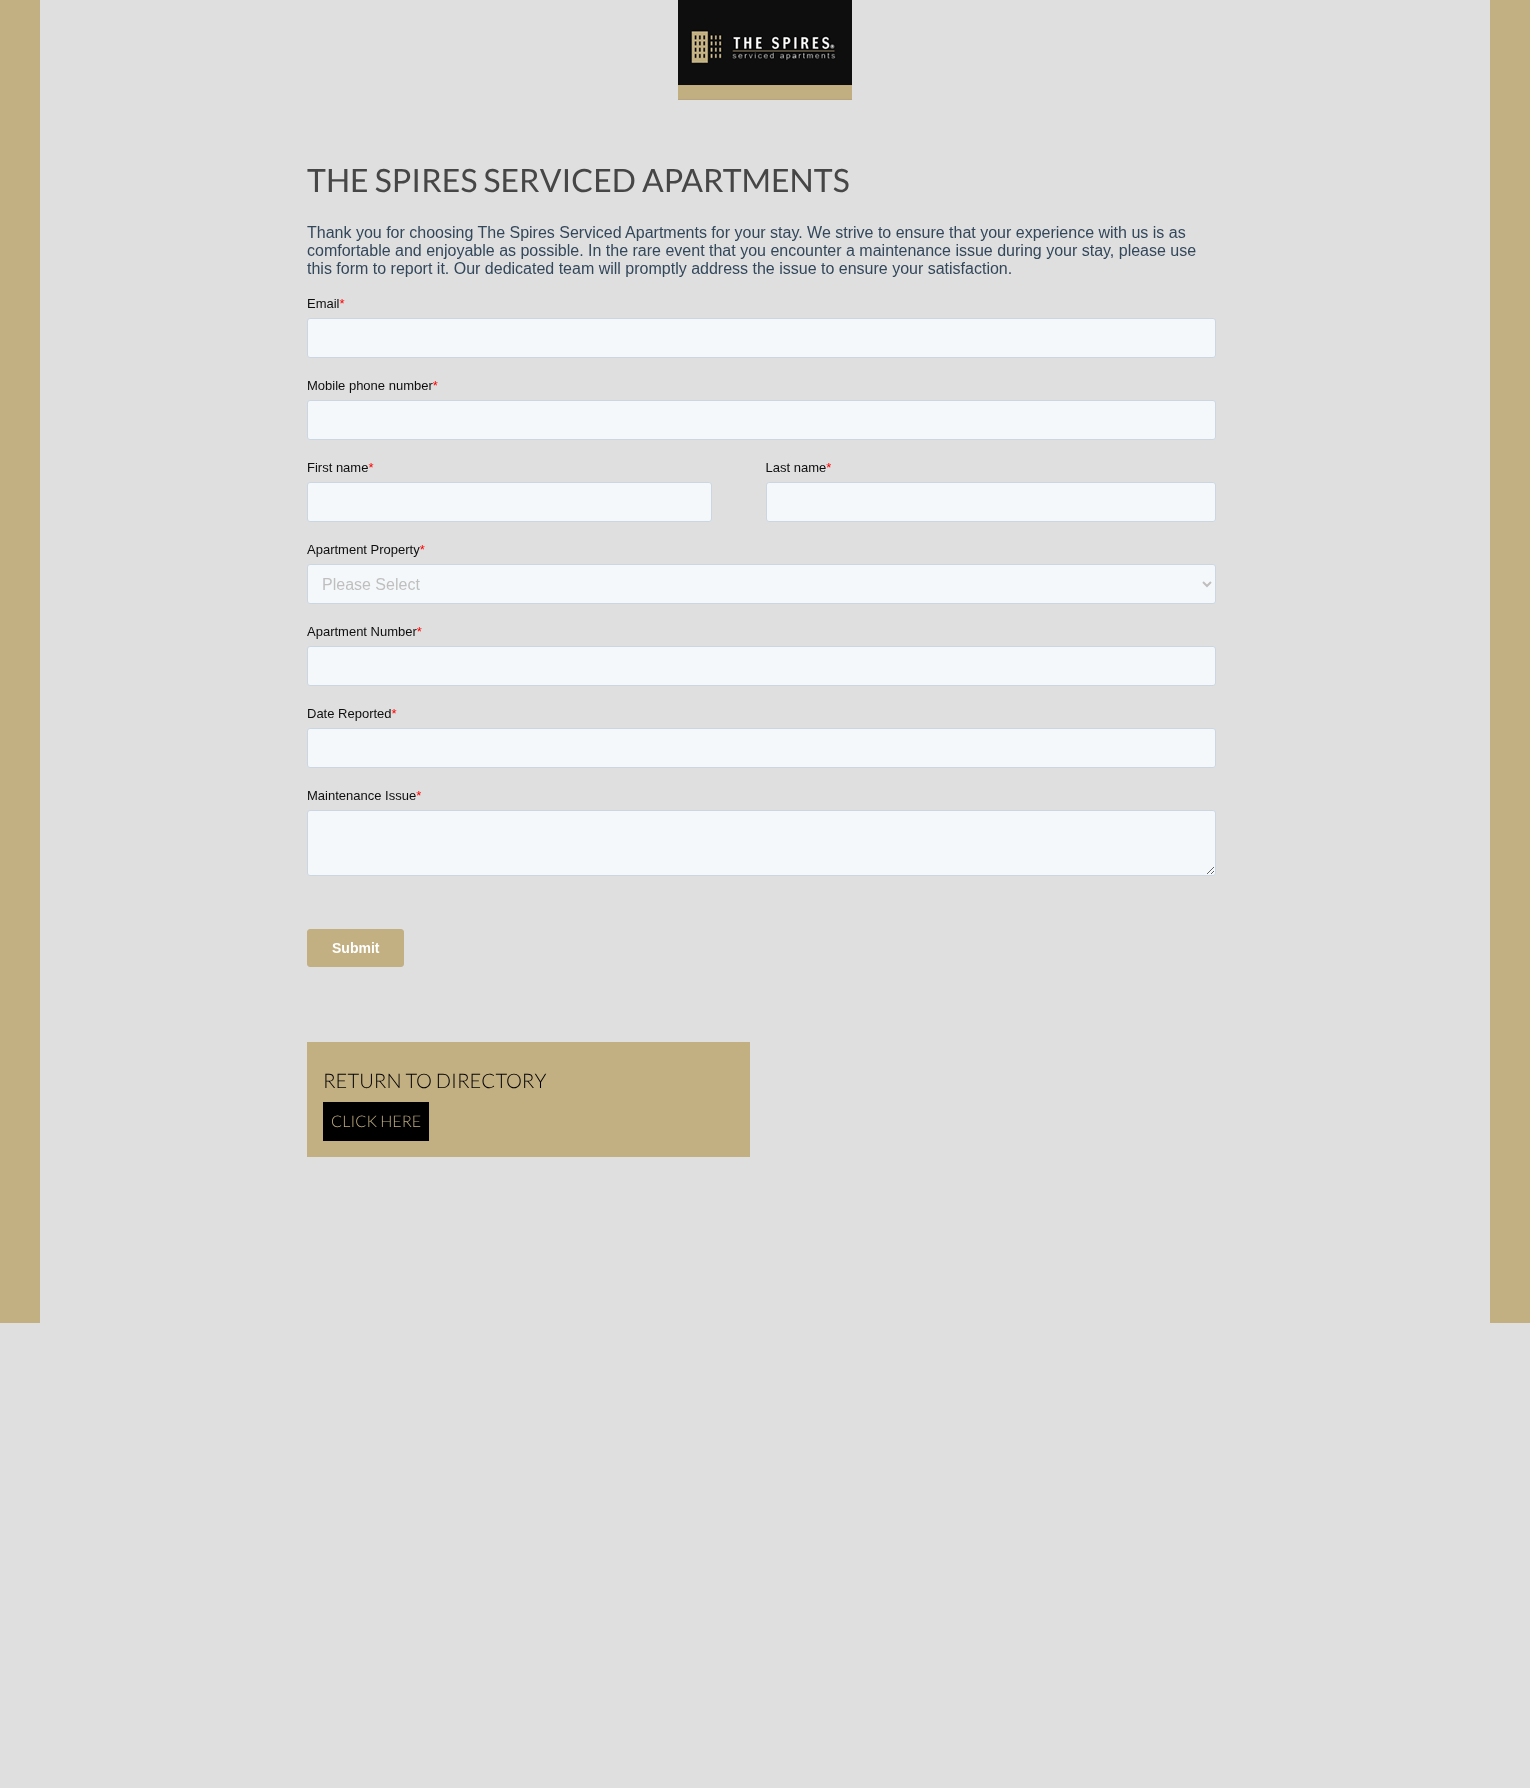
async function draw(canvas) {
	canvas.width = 1530;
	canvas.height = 1788;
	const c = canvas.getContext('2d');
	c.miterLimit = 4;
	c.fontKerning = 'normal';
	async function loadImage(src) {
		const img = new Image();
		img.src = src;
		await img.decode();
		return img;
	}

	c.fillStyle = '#dfdfdf';
	c.fillRect(0, 0, 1530, 1788);
	c.fillStyle = '#c2af82';
	c.fillRect(1490, 0, 40, 1323);
	c.fillRect(0, 0, 40, 1323);
	c.drawImage(await loadImage('img1.png'), 678, 0, 174, 100);
	c.font = '32px Lato';
	c.fillStyle = '#464646';
	c.fillText('THE SPIRES SERVICED APARTMENTS', 307, 192);
	c.drawImage(await loadImage('img2.png'), 307, 226, 909, 741);
	c.fillStyle = '#c2af82';
	c.fillRect(307, 1042, 443, 115);
	c.font = '300 20px Lato';
	c.fillStyle = '#000';
	c.fillText('RETURN TO DIRECTORY', 323, 1088);
	c.fillRect(323, 1102, 106, 39);
	c.font = '300 16px Lato';
	c.fillStyle = '#c2af82';
	c.fillText('CLICK HERE', 331, 1127);
}

draw(document.querySelector('canvas'));
